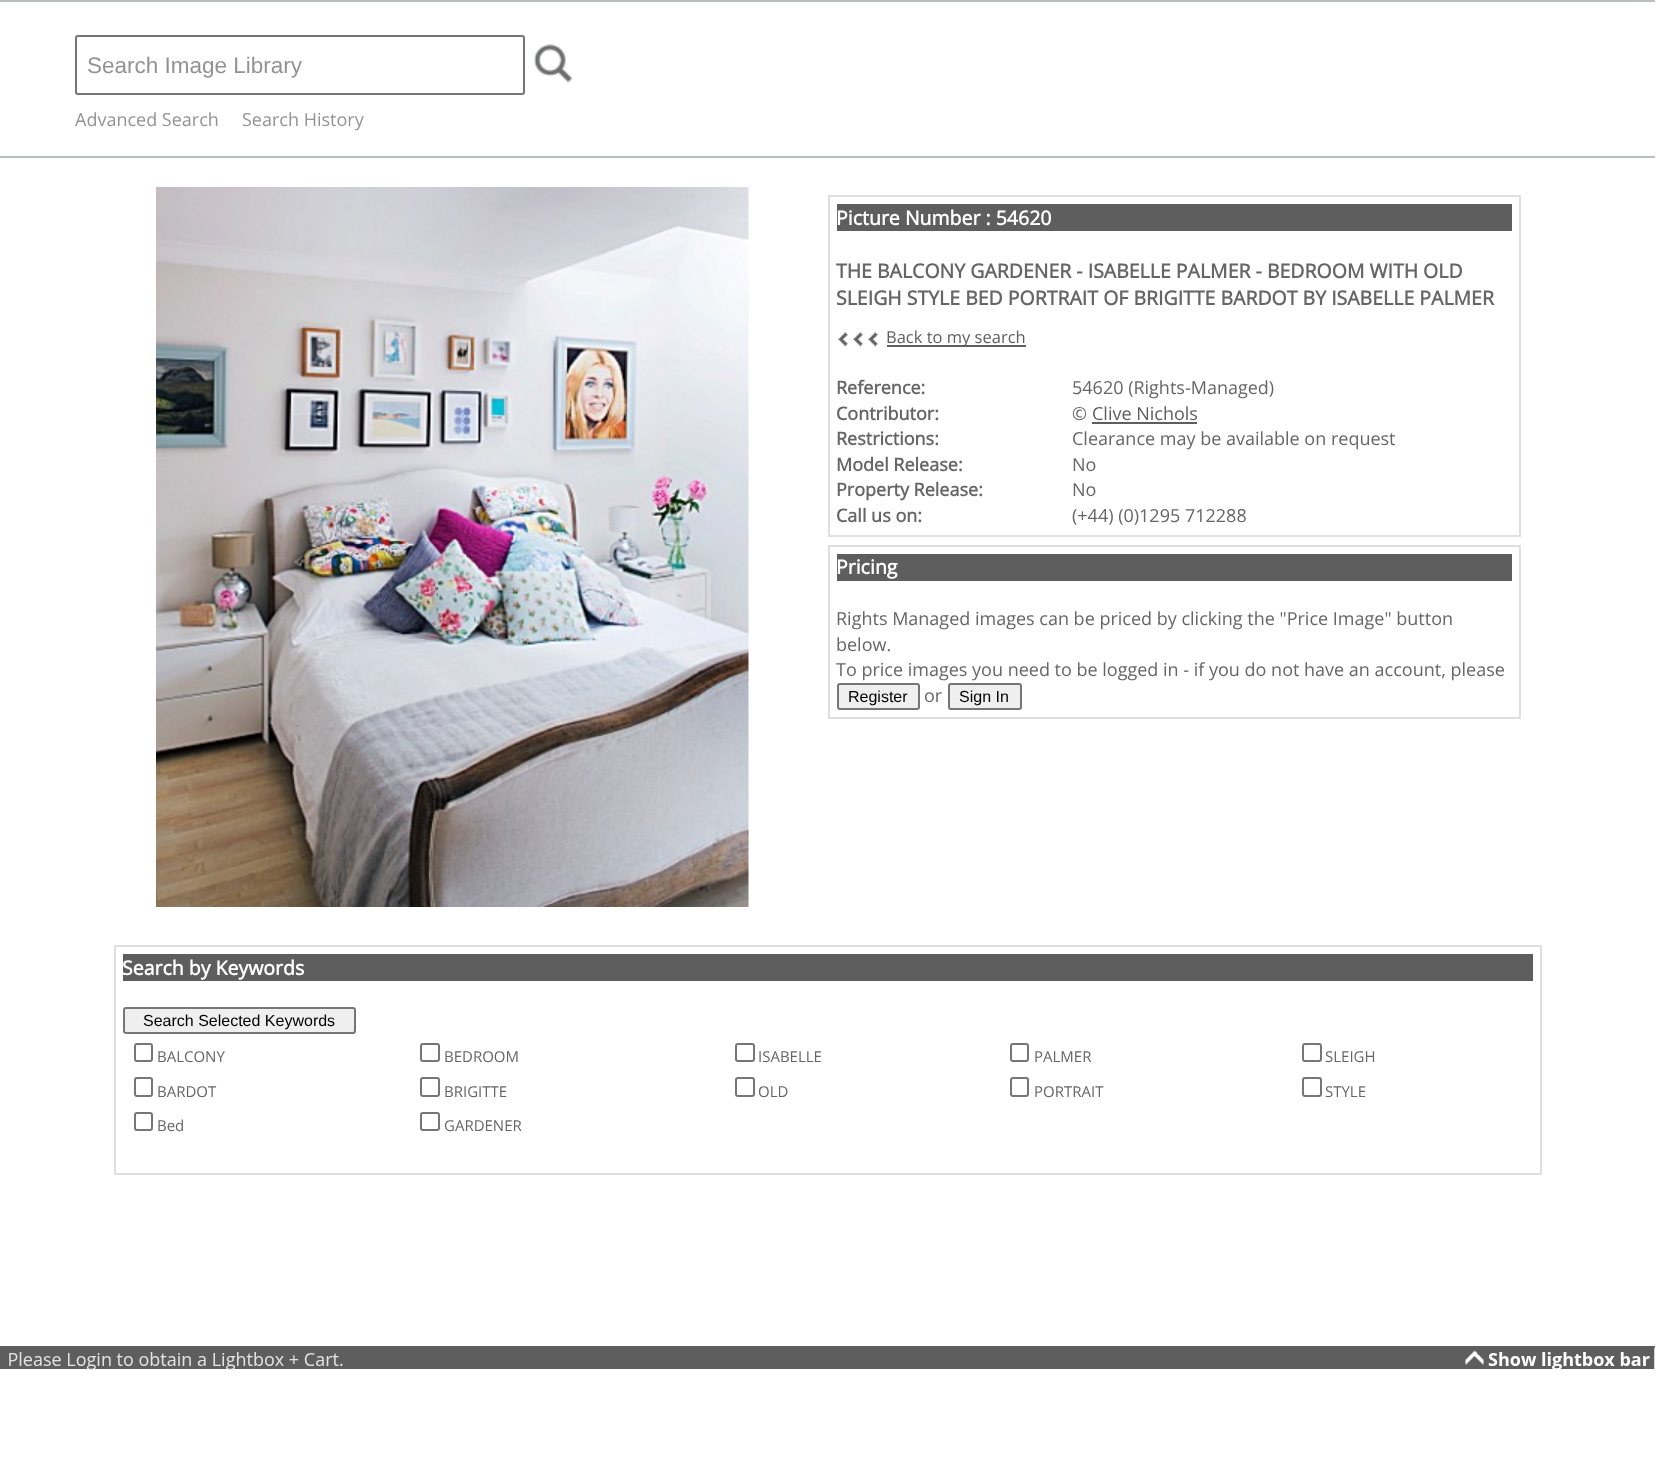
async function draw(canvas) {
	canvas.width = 1661;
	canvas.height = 1458;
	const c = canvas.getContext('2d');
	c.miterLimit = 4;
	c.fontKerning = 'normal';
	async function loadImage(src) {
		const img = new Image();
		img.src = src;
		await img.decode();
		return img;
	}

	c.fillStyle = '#fff';
	c.fillRect(0, 0, 1661, 1458);
	c.fillStyle = '#bac0c0';
	c.fillRect(0, 156, 1655, 2);
	c.fillRect(0, 0, 1655, 2);
	c.beginPath();
	c.roundRect(76, 36, 448, 58, 2);
	c.strokeStyle = '#767676';
	c.lineWidth = 2;
	c.stroke();
	c.font = '22.5px Liberation Sans';
	c.fillStyle = '#939393';
	c.fillText('Search Image Library', 87, 73);
	c.drawImage(await loadImage('img1.png'), 533, 44, 40, 39);
	c.font = '18px Open Sans';
	c.fillText('Advanced Search', 75, 126);
	c.fillText('Search History', 242, 126);
	c.drawImage(await loadImage('img2.png'), 156, 187, 593, 720);
	c.strokeStyle = '#dfdfdf';
	c.strokeRect(829, 196, 691, 340);
	c.fillStyle = '#5e5e5e';
	c.fillRect(837, 204, 675, 27);
	c.font = 'bold 19.5px Open Sans';
	c.fillStyle = '#fff';
	c.fillText('Picture Number : 54620', 836, 225);
	c.fillStyle = '#666';
	c.fillText('THE BALCONY GARDENER - ISABELLE PALMER - BEDROOM WITH OLD', 836, 278);
	c.fillText('SLEIGH STYLE BED PORTRAIT OF BRIGITTE BARDOT BY ISABELLE PALMER', 836, 305);
	c.drawImage(await loadImage('img3.png'), 838, 332, 10, 15);
	c.drawImage(await loadImage('img3.png'), 853, 332, 10, 15);
	c.drawImage(await loadImage('img3.png'), 868, 332, 10, 15);
	c.fillStyle = '#5e5e5e';
	c.fillRect(887, 345, 139, 2);
	c.font = '16.5px Open Sans';
	c.fillText('Back to my search', 886, 343);
	c.font = 'bold 18px Open Sans';
	c.fillStyle = '#666';
	c.fillText('Reference:', 836, 394);
	c.font = '18px Open Sans';
	c.fillText('54620 (Rights-Managed)', 1072, 394);
	c.font = 'bold 18px Open Sans';
	c.fillText('Contributor:', 836, 420);
	c.font = '18px Open Sans';
	c.fillText('©', 1072, 420);
	c.fillStyle = '#5e5e5e';
	c.fillText('Clive Nichols', 1092, 420);
	c.fillRect(1092, 422, 105, 2);
	c.font = 'bold 18px Open Sans';
	c.fillStyle = '#666';
	c.fillText('Restrictions:', 836, 445);
	c.font = '18px Open Sans';
	c.fillText('Clearance may be available on request', 1072, 445);
	c.font = 'bold 18px Open Sans';
	c.fillText('Model Release:', 836, 471);
	c.font = '18px Open Sans';
	c.fillText('No', 1072, 471);
	c.font = 'bold 18px Open Sans';
	c.fillText('Property Release:', 836, 496);
	c.font = '18px Open Sans';
	c.fillText('No', 1072, 496);
	c.font = 'bold 18px Open Sans';
	c.fillText('Call us on:', 836, 522);
	c.font = '18px Open Sans';
	c.fillText('(+44) (0)1295 712288', 1072, 522);
	c.strokeRect(829, 546, 691, 172);
	c.fillStyle = '#5e5e5e';
	c.fillRect(837, 554, 675, 27);
	c.font = 'bold 19.5px Open Sans';
	c.fillStyle = '#fff';
	c.fillText('Pricing', 836, 574);
	c.font = '18px Open Sans';
	c.fillStyle = '#666';
	for (const [text, x, y] of [
		['Rights Managed images can be priced by clicking the "Price Image" button', 836, 625],
		['below.', 836, 651],
		['To price images you need to be logged in - if you do not have an account, please', 836, 676],
	]) {
		c.fillText(text, x, y);
	}
	c.fillStyle = '#efefef';
	c.beginPath();
	c.roundRect(838, 684, 81, 25, 2);
	c.fill();
	c.strokeStyle = '#767676';
	c.stroke();
	c.font = '16px Liberation Sans';
	c.fillStyle = '#000';
	c.fillText('Register', 848, 702);
	c.font = '18px Open Sans';
	c.fillStyle = '#666';
	c.fillText('or', 924, 702);
	c.fillStyle = '#efefef';
	c.beginPath();
	c.roundRect(949, 684, 72, 25, 2);
	c.fill();
	c.stroke();
	c.font = '16px Liberation Sans';
	c.fillStyle = '#000';
	c.fillText('Sign In', 959, 702);
	c.strokeStyle = '#dfdfdf';
	c.strokeRect(115, 946, 1426, 228);
	c.fillStyle = '#5e5e5e';
	c.fillRect(123, 954, 1410, 27);
	c.font = 'bold 19.5px Open Sans';
	c.fillStyle = '#fff';
	c.fillText('Search by Keywords', 122, 975);
	c.fillStyle = '#efefef';
	c.beginPath();
	c.roundRect(124, 1008, 231, 25, 2);
	c.fill();
	c.strokeStyle = '#767676';
	c.stroke();
	c.font = '16px Liberation Sans';
	c.fillStyle = '#000';
	c.fillText('Search Selected Keywords', 143, 1026);
	c.beginPath();
	c.roundRect(135, 1044, 17, 17, 2);
	c.stroke();
	c.font = '15px Open Sans';
	c.fillStyle = '#666';
	c.fillText('BALCONY', 157, 1062);
	c.beginPath();
	c.roundRect(421, 1044, 18, 17, 2);
	c.stroke();
	c.fillText('BEDROOM', 444, 1062);
	c.beginPath();
	c.roundRect(736, 1044, 18, 17, 2);
	c.stroke();
	c.fillText('ISABELLE', 758, 1062);
	c.beginPath();
	c.roundRect(1011, 1044, 17, 17, 2);
	c.stroke();
	c.fillText('PALMER', 1034, 1062);
	c.beginPath();
	c.roundRect(1303, 1044, 18, 17, 2);
	c.stroke();
	c.fillText('SLEIGH', 1325, 1062);
	c.beginPath();
	c.roundRect(135, 1078, 17, 18, 2);
	c.stroke();
	c.fillText('BARDOT', 157, 1097);
	c.beginPath();
	c.roundRect(421, 1078, 18, 18, 2);
	c.stroke();
	c.fillText('BRIGITTE', 444, 1097);
	c.beginPath();
	c.roundRect(736, 1078, 18, 18, 2);
	c.stroke();
	c.fillText('OLD', 758, 1097);
	c.beginPath();
	c.roundRect(1011, 1078, 17, 18, 2);
	c.stroke();
	c.fillText('PORTRAIT', 1034, 1097);
	c.beginPath();
	c.roundRect(1303, 1078, 18, 18, 2);
	c.stroke();
	c.fillText('STYLE', 1325, 1097);
	c.beginPath();
	c.roundRect(135, 1113, 17, 17, 2);
	c.stroke();
	c.fillText('Bed', 157, 1131);
	c.beginPath();
	c.roundRect(421, 1113, 18, 17, 2);
	c.stroke();
	c.fillText('GARDENER', 444, 1131);
	c.fillStyle = '#5e5e5e';
	c.fillRect(0, 1346, 1655, 2);
	c.drawImage(await loadImage('img4.png'), 0, 1348, 1655, 22);
}

draw(document.querySelector('canvas'));
